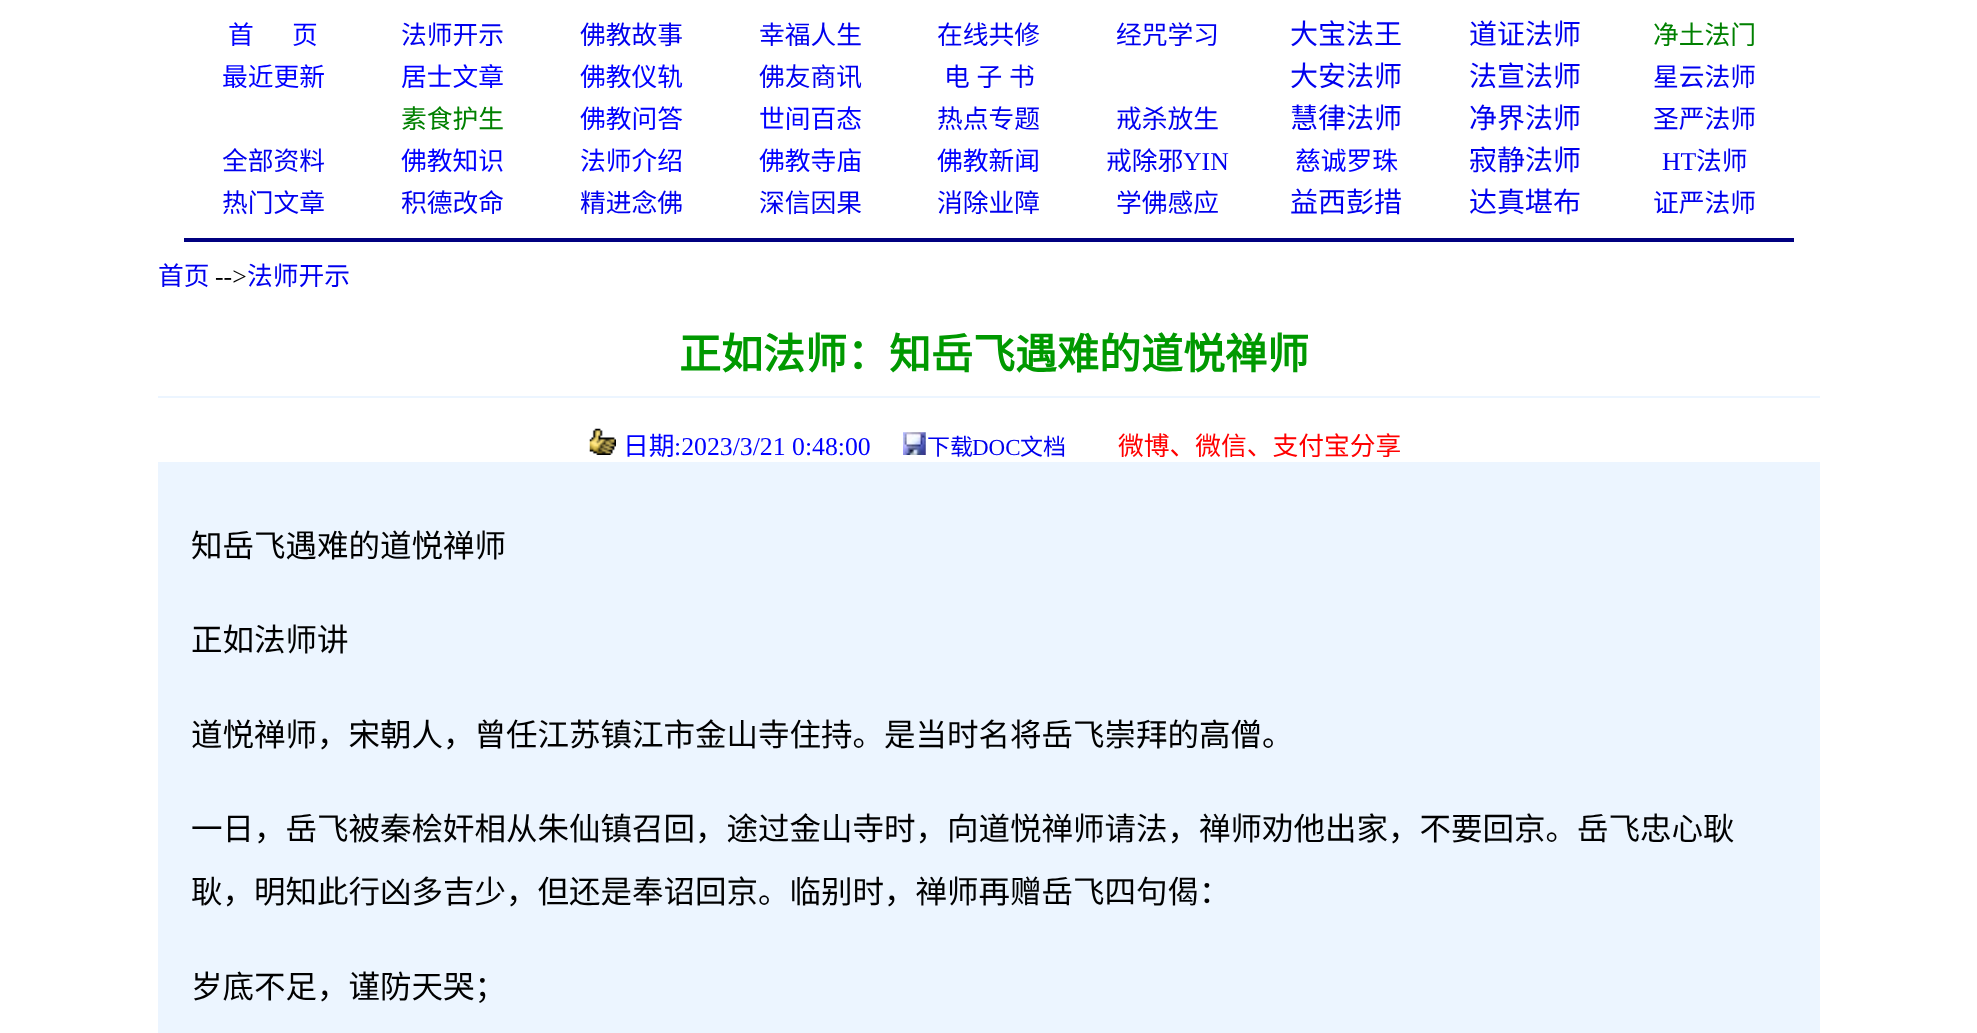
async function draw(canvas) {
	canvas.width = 1977;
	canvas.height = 1033;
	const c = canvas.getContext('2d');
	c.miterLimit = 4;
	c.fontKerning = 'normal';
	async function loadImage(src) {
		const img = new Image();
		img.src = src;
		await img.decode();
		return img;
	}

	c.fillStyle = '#fff';
	c.fillRect(0, 0, 1977, 1033);
	c.font = '25.75px Noto Sans CJK SC';
	c.fillStyle = '#00f';
	c.fillText('首', 228, 44);
	c.fillText('页', 292, 44);
	c.fillStyle = '#00e';
	for (const [text, x, y] of [
		['法师开示', 401, 44],
		['佛教故事', 580, 44],
		['幸福人生', 759, 44],
		['在线共修', 937, 44],
		['经咒学习', 1116, 44],
	]) {
		c.fillText(text, x, y);
	}
	c.font = '28px Noto Sans CJK SC';
	c.fillText('大宝法王', 1290, 44);
	c.fillText('道证法师', 1469, 44);
	c.font = '25.75px Noto Sans CJK SC';
	c.fillStyle = '#008000';
	c.fillText('净土法门', 1653, 44);
	c.fillStyle = '#00f';
	for (const [text, x, y] of [
		['最近更新', 222, 86],
		['居士文章', 401, 86],
		['佛教仪轨', 580, 86],
	]) {
		c.fillText(text, x, y);
	}
	c.fillStyle = '#00e';
	c.fillText('佛友商讯', 759, 86);
	c.wordSpacing = '1px';
	c.fillText('电 子 书', 944, 86);
	c.wordSpacing = '0px';
	c.font = '28px Noto Sans CJK SC';
	c.fillText('大安法师', 1290, 86);
	c.fillText('法宣法师', 1469, 86);
	c.font = '25.75px Noto Sans CJK SC';
	c.fillText('星云法师', 1653, 86);
	c.fillStyle = '#008000';
	c.fillText('素食护生', 401, 128);
	c.fillStyle = '#00f';
	c.fillText('佛教问答', 580, 128);
	c.fillText('世间百态', 759, 128);
	c.fillStyle = '#00e';
	c.fillText('热点专题', 937, 128);
	c.fillText('戒杀放生', 1116, 128);
	c.font = '28px Noto Sans CJK SC';
	c.fillText('慧律法师', 1290, 128);
	c.fillText('净界法师', 1469, 128);
	c.font = '25.75px Noto Sans CJK SC';
	c.fillText('圣严法师', 1653, 128);
	c.fillText('全部资料', 222, 170);
	c.fillStyle = '#00f';
	for (const [text, x, y] of [
		['佛教知识', 401, 170],
		['法师介绍', 580, 170],
		['佛教寺庙', 759, 170],
		['佛教新闻', 937, 170],
	]) {
		c.fillText(text, x, y);
	}
	c.fillStyle = '#00e';
	c.fillText('戒除邪', 1106, 170);
	c.font = '25.75px Liberation Serif';
	c.fillText('YIN', 1183, 170);
	c.font = '25.75px Noto Sans CJK SC';
	c.fillStyle = '#00f';
	c.fillText('慈诚罗珠', 1295, 170);
	c.font = '28px Noto Sans CJK SC';
	c.fillStyle = '#00e';
	c.fillText('寂静法师', 1469, 170);
	c.font = '25.75px Liberation Serif';
	c.fillText('HT', 1662, 170);
	c.font = '25.75px Noto Sans CJK SC';
	for (const [text, x, y] of [
		['法师', 1696, 170],
		['热门文章', 222, 212],
		['积德改命', 401, 212],
		['精进念佛', 580, 212],
		['深信因果', 759, 212],
		['消除业障', 937, 212],
		['学佛感应', 1116, 212],
	]) {
		c.fillText(text, x, y);
	}
	c.font = '28px Noto Sans CJK SC';
	c.fillText('益西彭措', 1290, 212);
	c.fillText('达真堪布', 1469, 212);
	c.font = '25.75px Noto Sans CJK SC';
	c.fillText('证严法师', 1653, 212);
	c.fillStyle = '#000080';
	c.fillRect(184, 238, 1610, 4);
	c.fillStyle = '#00e';
	c.fillText('首页', 158, 285);
	c.font = '25.75px Liberation Serif';
	c.fillStyle = '#000';
	c.fillText('-->', 215, 285);
	c.font = '25.75px Noto Sans CJK SC';
	c.fillStyle = '#00e';
	c.fillText('法师开示', 247, 285);
	c.font = 'bold 42px Noto Sans CJK SC';
	c.fillStyle = '#090';
	c.fillText('正如法师：知岳飞遇难的道悦禅师', 679, 369);
	c.fillStyle = '#ecf5ff';
	c.fillRect(158, 396, 1662, 2);
	c.drawImage(await loadImage('img1.png'), 589, 428, 27, 27);
	c.font = '25.75px Noto Sans CJK SC';
	c.fillStyle = '#00f';
	c.fillText('日期', 623, 455);
	c.font = '25.75px Liberation Serif';
	c.fillText(':2023/3/21 0:48:00', 674, 455);
	c.drawImage(await loadImage('img2.png'), 903, 432, 23, 23);
	c.font = '23px Noto Sans CJK SC';
	c.fillStyle = '#00e';
	c.fillText('下载', 927, 455);
	c.font = '23px Liberation Serif';
	c.fillText('DOC', 972, 455);
	c.font = '23px Noto Sans CJK SC';
	c.fillText('文档', 1020, 455);
	c.font = '25.75px Noto Sans CJK SC';
	c.fillStyle = '#f00';
	c.fillText('微博、微信、支付宝分享', 1118, 455);
	c.fillStyle = '#ecf5ff';
	c.fillRect(158, 462, 1662, 571);
	c.font = '31.5px Noto Sans CJK SC';
	c.fillStyle = '#000';
	for (const [text, x, y] of [
		['知岳飞遇难的道悦禅师', 191, 557],
		['正如法师讲', 191, 651],
		['道悦禅师，宋朝人，曾任江苏镇江市金山寺住持。是当时名将岳飞崇拜的高僧。', 191, 746],
		['一日，岳飞被秦桧奸相从朱仙镇召回，途过金山寺时，向道悦禅师请法，禅师劝他出家，不要回京。岳飞忠心耿', 191, 840],
		['耿，明知此行凶多吉少，但还是奉诏回京。临别时，禅师再赠岳飞四句偈：', 191, 903],
		['岁底不足，谨防天哭；', 191, 998],
	]) {
		c.fillText(text, x, y);
	}
}

draw(document.querySelector('canvas'));
